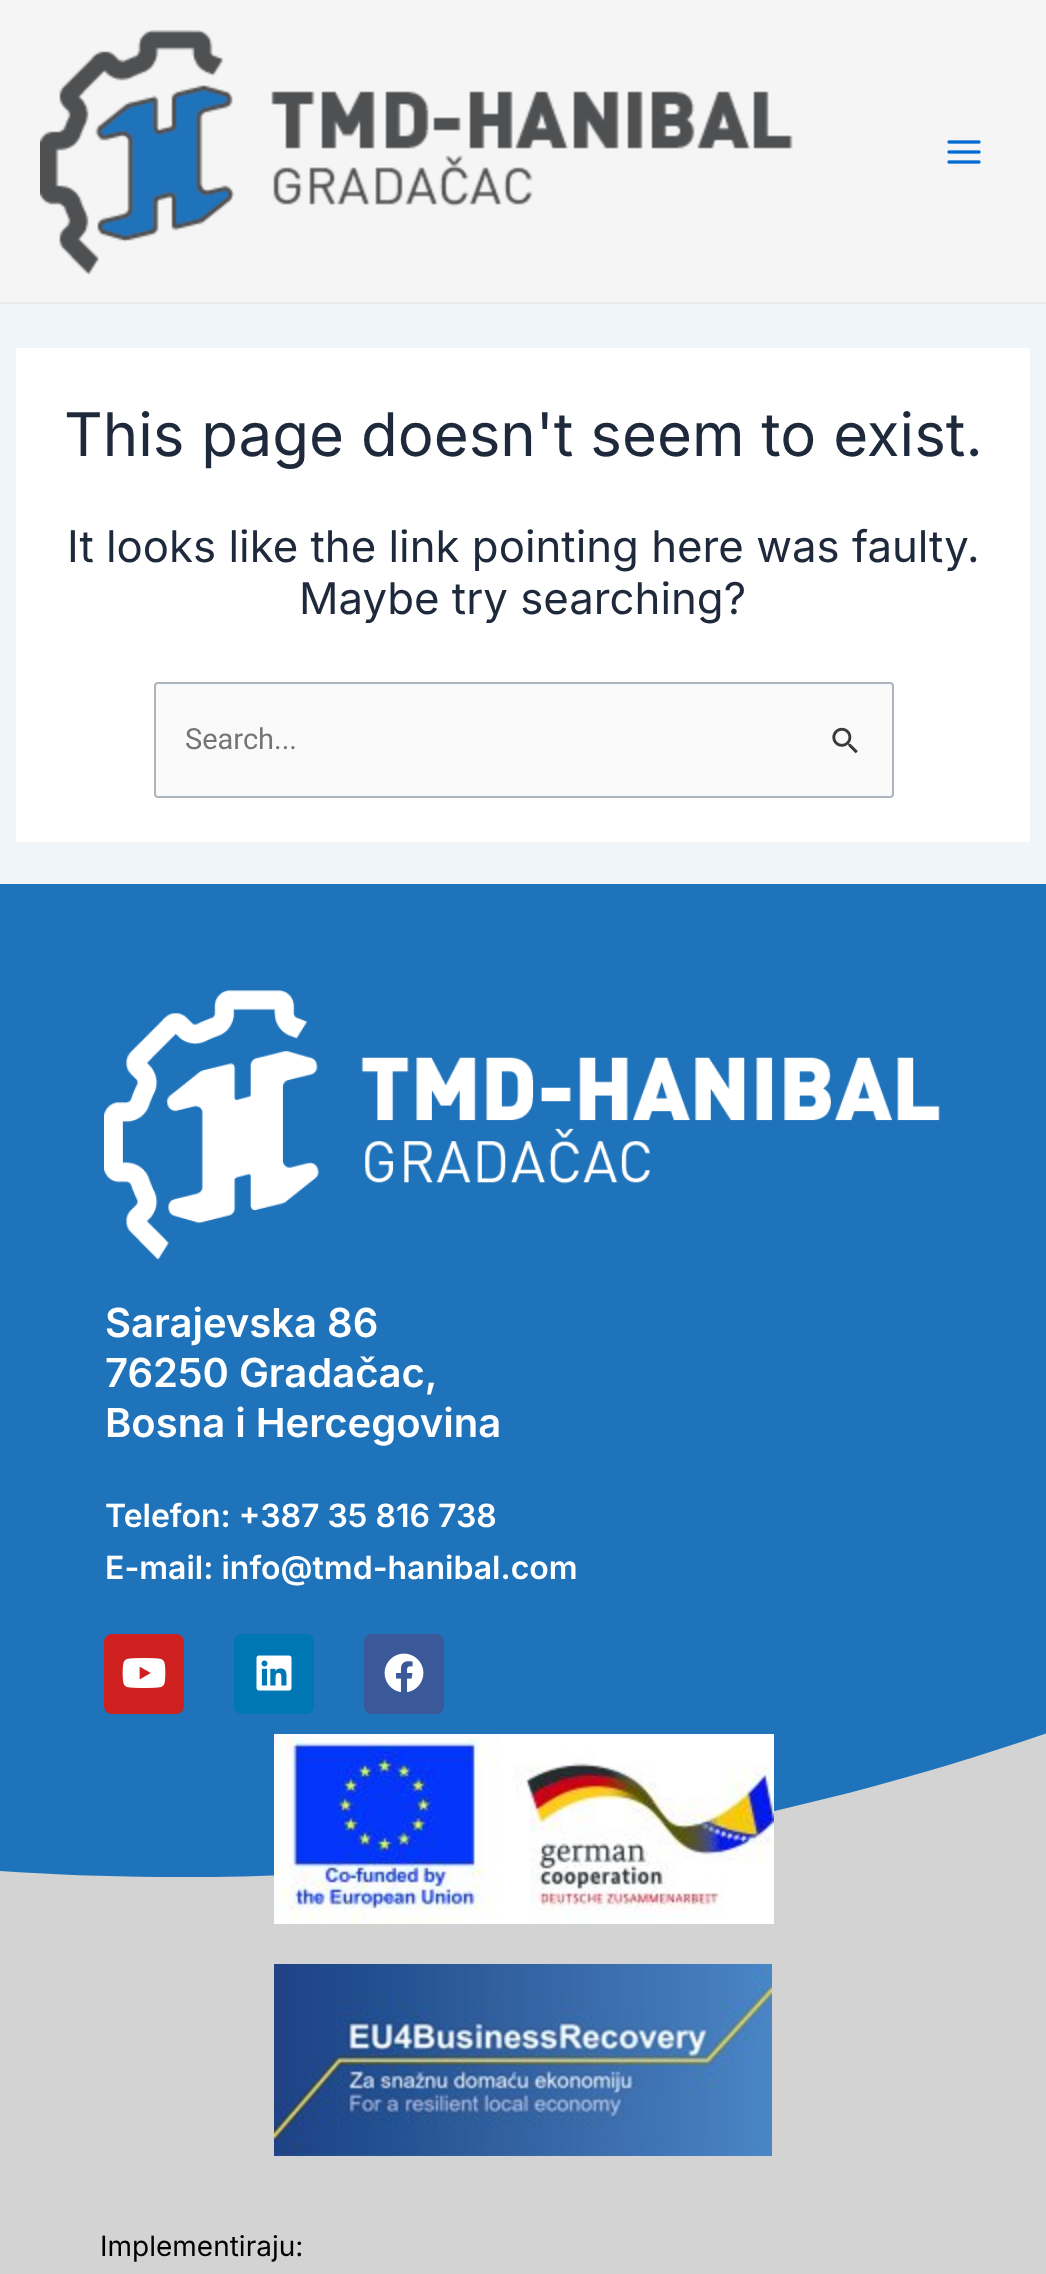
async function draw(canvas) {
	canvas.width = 1046;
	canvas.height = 2274;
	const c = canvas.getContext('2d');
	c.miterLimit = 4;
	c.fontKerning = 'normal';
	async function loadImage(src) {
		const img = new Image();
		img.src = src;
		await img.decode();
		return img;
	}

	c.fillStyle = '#f0f5fa';
	c.fillRect(0, 0, 1046, 2274);
	c.fillStyle = '#f5f5f5';
	c.fillRect(0, 0, 1046, 302);
	c.fillStyle = '#eaeaea';
	c.fillRect(0, 302, 1046, 2);
	c.drawImage(await loadImage('img1.png'), 40, 30, 753, 244);
	c.drawImage(await loadImage('img2.png'), 947, 140, 34, 24);
	c.fillStyle = '#fff';
	c.fillRect(16, 348, 1014, 494);
	c.font = '60px Inter';
	c.fillStyle = '#1e293b';
	c.fillText('This page doesn\'t seem to exist.', 64, 456);
	c.font = '43.75px Inter';
	c.fillText('It looks like the link pointing here was faulty.', 67, 562);
	c.fillText('Maybe try searching?', 299, 614);
	c.fillStyle = '#fafafa';
	c.beginPath();
	c.roundRect(155, 683, 738, 114, 3);
	c.fill();
	c.strokeStyle = '#adb6be';
	c.lineWidth = 2;
	c.stroke();
	c.font = '29px Roboto';
	c.fillStyle = '#757575';
	c.fillText('Search...', 185, 749);
	c.drawImage(await loadImage('img3.png'), 832, 727, 26, 27);
	c.fillStyle = '#d3d3d3';
	c.fillRect(0, 1733, 1046, 541);
	c.fillStyle = '#1f73ba';
	c.beginPath();
	c.moveTo(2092, 884);
	c.lineTo(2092, 951);
	c.bezierCurveTo(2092, 1131, 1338, 1887, 160, 1877);
	c.bezierCurveTo(-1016, 1869, -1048, 1134, -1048, 951);
	c.lineTo(-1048, 884);
	c.closePath();
	c.fill();
	c.drawImage(await loadImage('img4.png'), 104, 990, 836, 270);
	c.font = '600 40px Inter';
	c.fillStyle = '#fff';
	for (const [text, x, y] of [
		['Sarajevska 86', 105, 1337],
		['76250 Gradačac,', 105, 1387],
		['Bosna i Hercegovina', 105, 1437],
	]) {
		c.fillText(text, x, y);
	}
	c.font = '600 32px Inter';
	c.fillText('Telefon: +387 35 816 738', 105, 1527);
	c.fillText('E-mail: info@tmd-hanibal.com', 105, 1579);
	c.fillStyle = '#cd201f';
	c.beginPath();
	c.roundRect(104, 1634, 80, 80, 8);
	c.fill();
	c.drawImage(await loadImage('img5.png'), 122, 1658, 44, 30);
	c.fillStyle = '#0077b5';
	c.beginPath();
	c.roundRect(234, 1634, 80, 80, 8);
	c.fill();
	c.drawImage(await loadImage('img6.png'), 256, 1655, 36, 36);
	c.fillStyle = '#3b5998';
	c.beginPath();
	c.roundRect(364, 1634, 80, 80, 8);
	c.fill();
	c.drawImage(await loadImage('img7.png'), 384, 1653, 40, 40);
	c.drawImage(await loadImage('img8.png'), 274, 1734, 500, 190);
	c.drawImage(await loadImage('img9.png'), 274, 1964, 498, 192);
	c.font = '28px Inter';
	c.fillStyle = '#000';
	c.fillText('Implementiraju:', 100, 2256);
}

draw(document.querySelector('canvas'));
